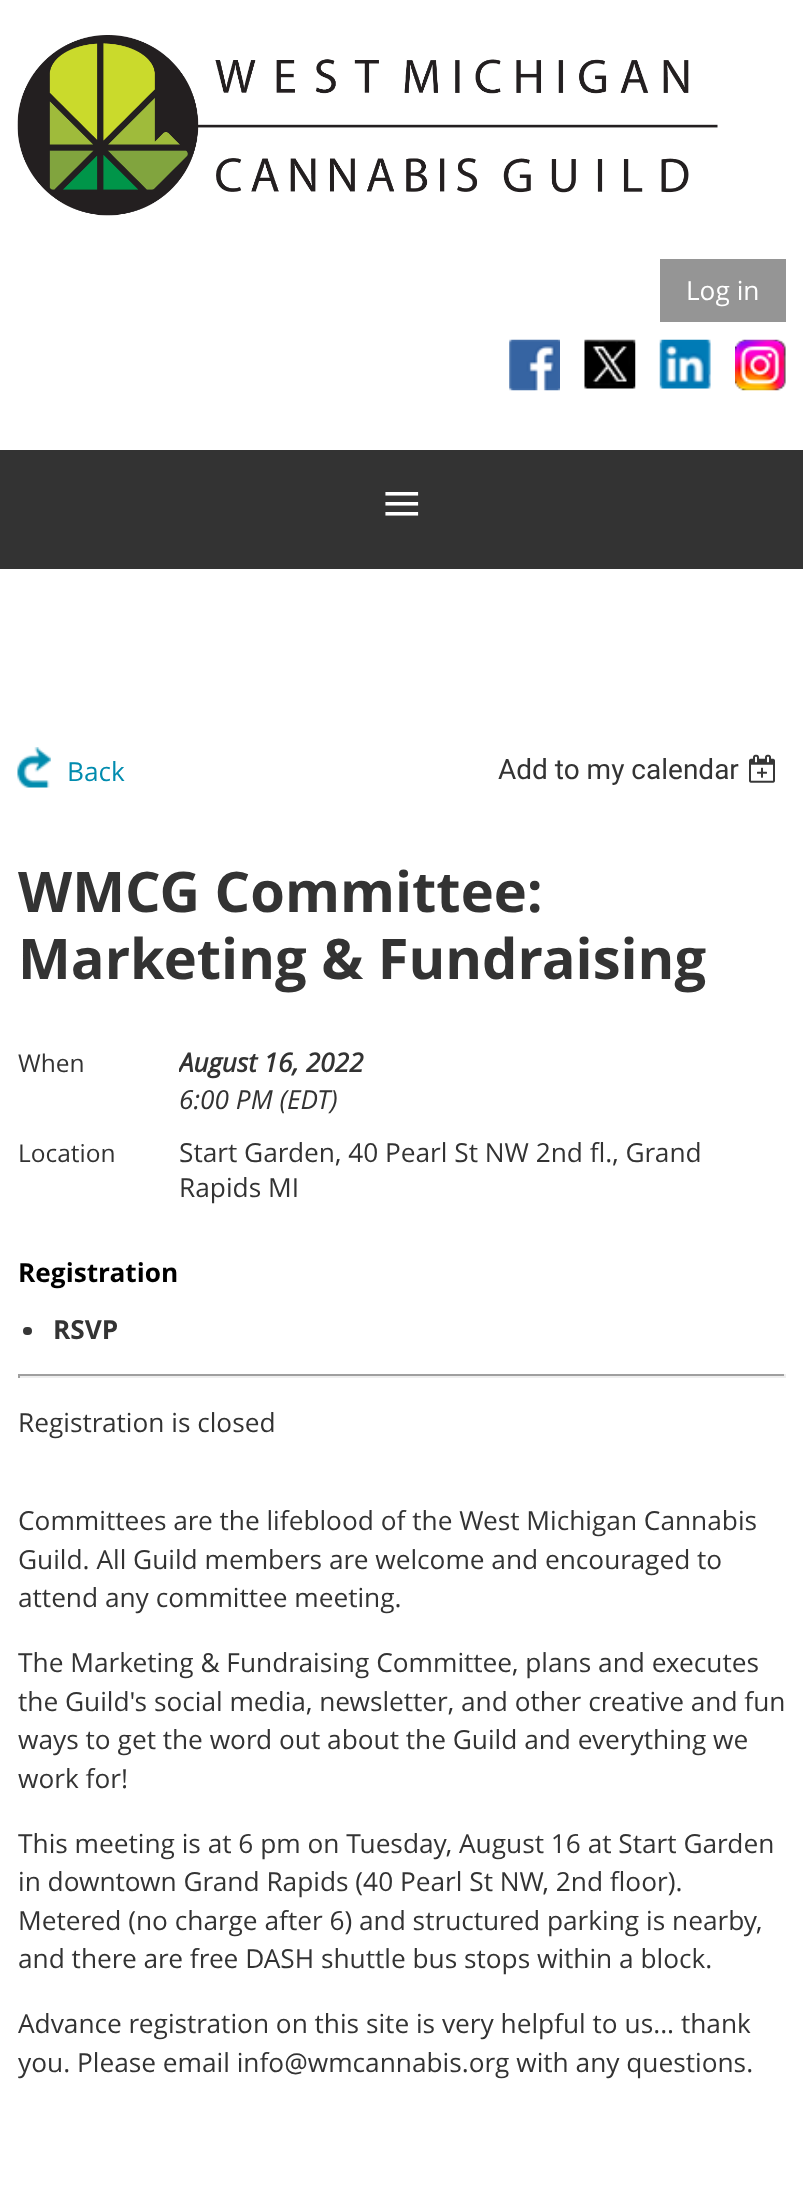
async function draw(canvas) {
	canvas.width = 803;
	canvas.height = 2190;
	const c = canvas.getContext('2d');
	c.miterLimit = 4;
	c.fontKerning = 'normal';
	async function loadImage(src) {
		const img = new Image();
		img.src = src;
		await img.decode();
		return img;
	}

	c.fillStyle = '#fff';
	c.fillRect(0, 0, 803, 2190);
	c.drawImage(await loadImage('img1.png'), 17, 35, 701, 181);
	c.fillStyle = '#959595';
	c.fillRect(660, 259, 126, 63);
	c.font = '26.25px Open Sans';
	c.fillStyle = '#fff';
	c.fillText('Log in', 686, 300);
	c.drawImage(await loadImage('img2.png'), 509, 339, 51, 52);
	c.drawImage(await loadImage('img3.png'), 584, 339, 52, 50);
	c.drawImage(await loadImage('img4.png'), 659, 339, 52, 50);
	c.drawImage(await loadImage('img5.png'), 735, 339, 51, 52);
	c.fillStyle = '#333';
	c.fillRect(0, 450, 803, 119);
	c.font = '70px Liberation Serif';
	c.fillStyle = '#fff';
	c.fillText('≡', 382, 527);
	c.drawImage(await loadImage('img6.png'), 17, 747, 34, 41);
	c.font = '26.25px Open Sans';
	c.fillStyle = '#008bae';
	c.fillText('Back', 67, 781);
	c.font = '28px Roboto';
	c.fillStyle = '#333';
	c.fillText('Add to my calendar', 498, 779);
	c.drawImage(await loadImage('img7.png'), 749, 754, 26, 29);
	c.font = 'bold 56px Open Sans';
	c.fillText('WMCG Committee:', 18, 912);
	c.fillText('Marketing & Fundraising', 18, 979);
	c.font = '24.5px Open Sans';
	c.fillText('When', 18, 1072);
	c.save();
	c.beginPath();
	c.rect(179, 1045, 607, 35);
	c.clip();
	c.font = 'italic bold 26.25px Open Sans';
	c.fillText('August 16, 2022', 179, 1072);
	c.restore();
	c.font = 'italic 26.25px Open Sans';
	c.fillText('6:00 PM (EDT)', 179, 1109);
	c.font = '24.5px Open Sans';
	c.fillText('Location', 18, 1162);
	c.font = '26.25px Open Sans';
	c.fillText('Start Garden, 40 Pearl St NW 2nd fl., Grand', 179, 1162);
	c.fillText('Rapids MI', 179, 1197);
	c.font = 'bold 26.25px Open Sans';
	c.fillStyle = '#000';
	c.fillText('Registration', 18, 1282);
	c.fillStyle = '#373737';
	c.beginPath();
	c.roundRect(23, 1327, 9, 8, 4);
	c.fill();
	c.fillStyle = '#333';
	c.fillText('RSVP', 53, 1339);
	for (const [x, y, w, h, color] of [
		[18, 1374, 768, 2, '#9f9f9f'],
		[784, 1374, 2, 4, '#eee'],
		[18, 1376, 768, 2, '#eee'],
		[18, 1374, 2, 4, '#9f9f9f'],
	]) {
		c.fillStyle = color;
		c.fillRect(x, y, w, h);
	}
	c.font = '26.25px Open Sans';
	c.fillStyle = '#333';
	for (const [text, x, y] of [
		['Registration is closed', 18, 1432],
		['Committees are the lifeblood of the West Michigan Cannabis', 18, 1530],
		['Guild. All Guild members are welcome and encouraged to', 18, 1569],
		['attend any committee meeting.', 18, 1607],
		['The Marketing & Fundraising Committee, plans and executes', 18, 1672],
		['the Guild\'s social media, newsletter, and other creative and fun', 18, 1711],
		['ways to get the word out about the Guild and everything we', 18, 1749],
		['work for!', 18, 1788],
		['This meeting is at 6 pm on Tuesday, August 16 at Start Garden', 18, 1853],
		['in downtown Grand Rapids (40 Pearl St NW, 2nd floor).', 18, 1891],
		['Metered (no charge after 6) and structured parking is nearby,', 18, 1930],
		['and there are free DASH shuttle bus stops within a block.', 18, 1968],
		['Advance registration on this site is very helpful to us... thank', 18, 2033],
	]) {
		c.fillText(text, x, y);
	}
	c.save();
	c.beginPath();
	c.rect(18, 1500, 768, 607);
	c.clip();
	c.fillText('you. Please email info@wmcannabis.org with any questions.', 18, 2072);
	c.restore();
}

draw(document.querySelector('canvas'));
